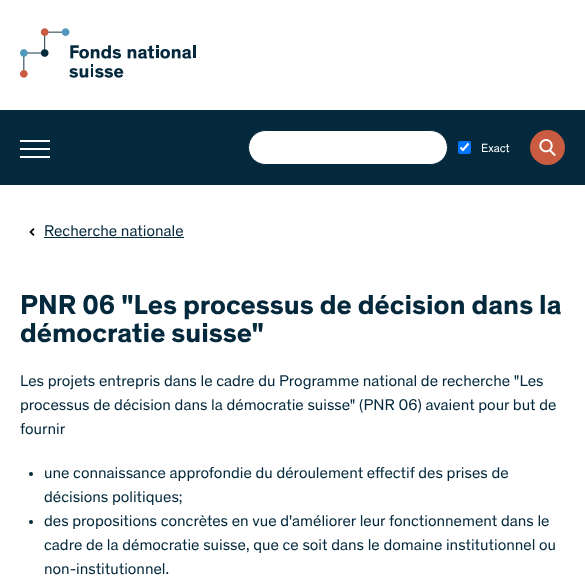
async function draw(canvas) {
	canvas.width = 585;
	canvas.height = 586;
	const c = canvas.getContext('2d');
	c.miterLimit = 4;
	c.fontKerning = 'normal';
	async function loadImage(src) {
		const img = new Image();
		img.src = src;
		await img.decode();
		return img;
	}

	c.fillStyle = '#fff';
	c.fillRect(0, 0, 585, 586);
	c.drawImage(await loadImage('img1.png'), 20, 28, 176, 50);
	for (const [x, y, w, h, color] of [
		[0, 110, 585, 75, '#04293c'],
		[20, 148, 30, 2, '#fff'],
		[20, 140, 30, 2, '#fff'],
		[20, 156, 30, 2, '#fff'],
	]) {
		c.fillStyle = color;
		c.fillRect(x, y, w, h);
	}
	c.beginPath();
	c.roundRect(248.5, 130.5, 199, 34, 17);
	c.fill();
	c.strokeStyle = '#04293c';
	c.stroke();
	c.fillStyle = '#0075ff';
	c.beginPath();
	c.roundRect(458, 141, 13, 13, 2);
	c.fill();
	c.beginPath();
	c.moveTo(460.5, 147.5);
	c.lineTo(463, 150);
	c.lineTo(468.5, 143.5);
	c.strokeStyle = '#fff';
	c.lineWidth = 2.1;
	c.stroke();
	c.font = '12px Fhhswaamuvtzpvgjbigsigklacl';
	c.fillStyle = '#fff';
	c.fillText('Exact', 481, 152);
	c.fillStyle = '#c95b40';
	c.beginPath();
	c.arc(547.5, 147.5, 17.5, 0, 2 * Math.PI);
	c.fill();
	c.drawImage(await loadImage('img2.png'), 539, 139, 17, 17);
	c.drawImage(await loadImage('img3.png'), 29, 228, 6, 8);
	c.font = '16px Fhhswaamuvtzpvgjbigsigklacl';
	c.fillStyle = '#04293c';
	c.fillText('Recherche nationale', 44, 236);
	c.fillRect(44, 237, 140, 1);
	c.font = 'bold 28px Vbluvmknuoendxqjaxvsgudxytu';
	c.fillText('PNR 06 "Les processus de décision dans la', 20, 314);
	c.fillText('démocratie suisse"', 20, 342);
	c.font = '16px Fhhswaamuvtzpvgjbigsigklacl';
	for (const [text, x, y] of [
		['Les projets entrepris dans le cadre du Programme national de recherche "Les', 20, 386],
		['processus de décision dans la démocratie suisse" (PNR 06) avaient pour but de', 20, 410],
		['fournir', 20, 434],
	]) {
		c.fillText(text, x, y);
	}
	c.beginPath();
	c.arc(31, 474, 2, 0, 2 * Math.PI);
	c.fill();
	c.fillText('une connaissance approfondie du déroulement effectif des prises de', 44, 478);
	c.fillText('décisions politiques;', 44, 502);
	c.beginPath();
	c.arc(31, 522, 2, 0, 2 * Math.PI);
	c.fill();
	for (const [text, x, y] of [
		['des propositions concrètes en vue d\'améliorer leur fonctionnement dans le', 44, 526],
		['cadre de la démocratie suisse, que ce soit dans le domaine institutionnel ou', 44, 550],
		['non-institutionnel.', 44, 574],
	]) {
		c.fillText(text, x, y);
	}
}

draw(document.querySelector('canvas'));
